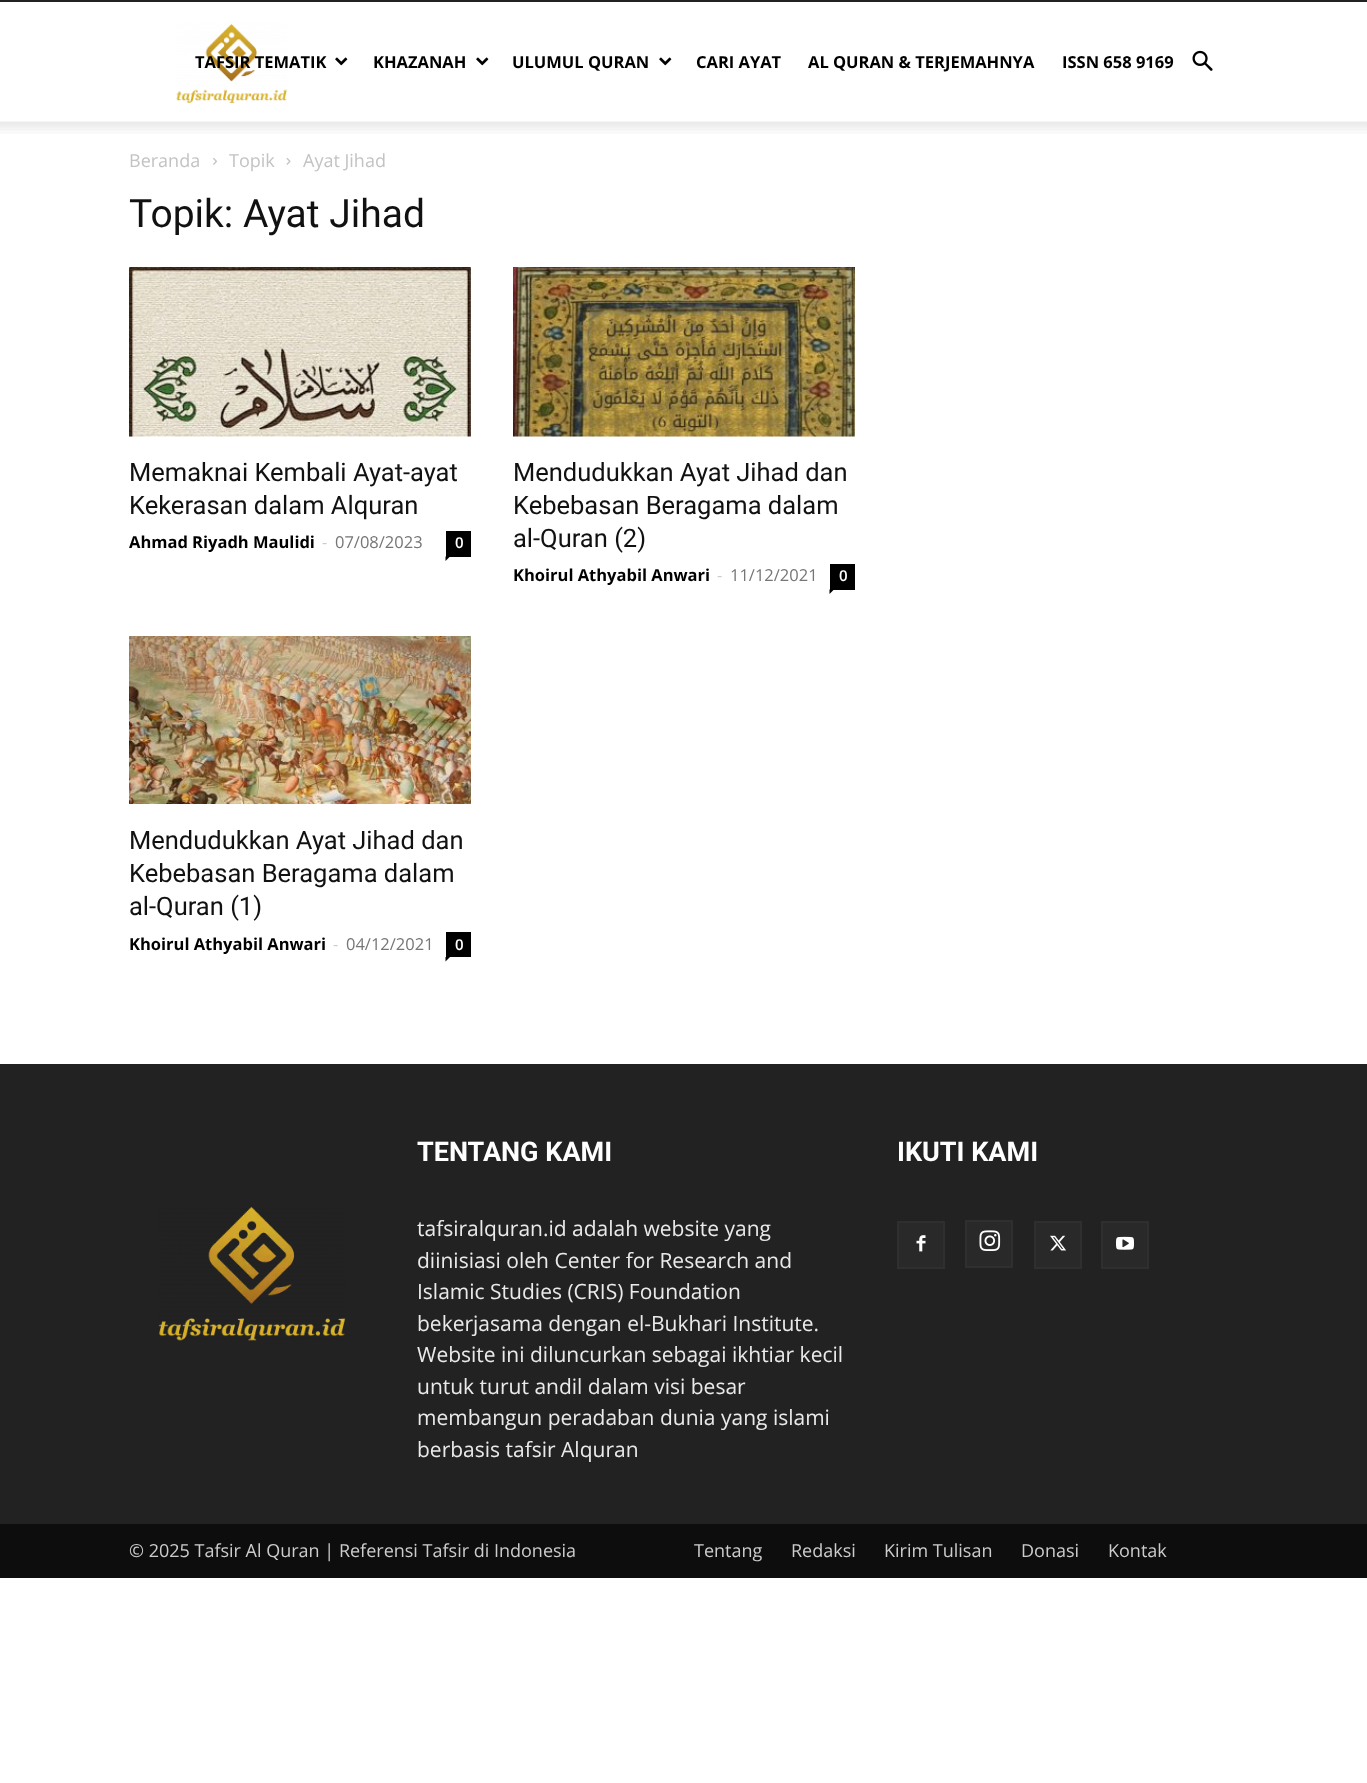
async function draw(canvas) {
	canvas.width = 1367;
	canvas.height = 1783;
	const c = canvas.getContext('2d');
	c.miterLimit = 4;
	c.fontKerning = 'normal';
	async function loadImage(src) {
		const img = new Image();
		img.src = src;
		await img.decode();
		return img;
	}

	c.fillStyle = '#fff';
	c.fillRect(0, 0, 1367, 1783);
	c.fillStyle = '#222';
	c.fillRect(0, 0, 1367, 2);
	c.drawImage(await loadImage('img1.png'), 176, 23, 112, 81);
	c.font = 'bold 16.5px Open Sans';
	c.fillStyle = '#000';
	c.fillText('TAFSIR TEMATIK', 195, 68);
	c.drawImage(await loadImage('img2.png'), 335, 57, 13, 9);
	c.fillText('KHAZANAH', 373, 68);
	c.drawImage(await loadImage('img2.png'), 476, 57, 13, 9);
	c.fillText('ULUMUL QURAN', 512, 68);
	c.drawImage(await loadImage('img2.png'), 659, 57, 13, 9);
	for (const [text, x, y] of [
		['CARI AYAT', 696, 68],
		['AL QURAN & TERJEMAHNYA', 808, 68],
		['ISSN 658 9169', 1062, 68],
	]) {
		c.fillText(text, x, y);
	}
	c.drawImage(await loadImage('img3.png'), 1192, 50, 21, 21);
	c.drawImage(await loadImage('img4.png'), 0, 121, 1367, 13);
	c.font = '18px Open Sans';
	c.fillStyle = '#c3c3c3';
	c.fillText('Beranda', 129, 167);
	c.drawImage(await loadImage('img5.png'), 213, 158, 4, 7);
	c.fillText('Topik', 229, 167);
	c.drawImage(await loadImage('img6.png'), 286, 158, 5, 7);
	c.fillText('Ayat Jihad', 303, 167);
	c.font = '39px Roboto';
	c.fillStyle = '#111';
	c.fillText('Topik: Ayat Jihad', 129, 227);
	c.drawImage(await loadImage('img7.png'), 129, 267, 342, 170);
	c.font = '25.5px Roboto';
	c.fillText('Memaknai Kembali Ayat-ayat', 129, 481);
	c.fillText('Kekerasan dalam Alquran', 129, 514);
	c.font = 'bold 16.5px Open Sans';
	c.fillStyle = '#000';
	c.fillText('Ahmad Riyadh Maulidi', 129, 548);
	c.font = '16.5px Open Sans';
	c.fillStyle = '#ccc';
	c.fillText('-', 322, 548);
	c.fillStyle = '#767676';
	c.fillText('07/08/2023', 335, 548);
	c.fillStyle = '#000';
	c.fillRect(446, 531, 25, 26);
	c.font = '600 15px Open Sans';
	c.fillStyle = '#fff';
	c.fillText('0', 455, 548);
	c.fillStyle = '#000';
	c.beginPath();
	c.moveTo(445.5, 556.5);
	c.lineTo(450, 556.5);
	c.lineTo(445.5, 561);
	c.closePath();
	c.fill();
	c.drawImage(await loadImage('img8.png'), 513, 267, 342, 170);
	c.font = '25.5px Roboto';
	c.fillStyle = '#111';
	for (const [text, x, y] of [
		['Mendudukkan Ayat Jihad dan', 513, 481],
		['Kebebasan Beragama dalam', 513, 514],
		['al-Quran (2)', 513, 547],
	]) {
		c.fillText(text, x, y);
	}
	c.font = 'bold 16.5px Open Sans';
	c.fillStyle = '#000';
	c.fillText('Khoirul Athyabil Anwari', 513, 581);
	c.font = '16.5px Open Sans';
	c.fillStyle = '#ccc';
	c.fillText('-', 717, 581);
	c.fillStyle = '#767676';
	c.fillText('11/12/2021', 730, 581);
	c.fillStyle = '#000';
	c.fillRect(830, 564, 25, 26);
	c.font = '600 15px Open Sans';
	c.fillStyle = '#fff';
	c.fillText('0', 839, 581);
	c.fillStyle = '#000';
	c.beginPath();
	c.moveTo(829.5, 589.5);
	c.lineTo(834, 589.5);
	c.lineTo(829.5, 594);
	c.closePath();
	c.fill();
	c.drawImage(await loadImage('img9.png'), 129, 636, 342, 168);
	c.font = '25.5px Roboto';
	c.fillStyle = '#111';
	for (const [text, x, y] of [
		['Mendudukkan Ayat Jihad dan', 129, 849],
		['Kebebasan Beragama dalam', 129, 882],
		['al-Quran (1)', 129, 915],
	]) {
		c.fillText(text, x, y);
	}
	c.font = 'bold 16.5px Open Sans';
	c.fillStyle = '#000';
	c.fillText('Khoirul Athyabil Anwari', 129, 950);
	c.font = '16.5px Open Sans';
	c.fillStyle = '#ccc';
	c.fillText('-', 333, 950);
	c.fillStyle = '#767676';
	c.fillText('04/12/2021', 346, 950);
	c.fillStyle = '#000';
	c.fillRect(446, 932, 25, 25);
	c.font = '600 15px Open Sans';
	c.fillStyle = '#fff';
	c.fillText('0', 455, 950);
	c.fillStyle = '#000';
	c.beginPath();
	c.moveTo(445.5, 957);
	c.lineTo(450, 957);
	c.lineTo(445.5, 961.5);
	c.closePath();
	c.fill();
	c.fillStyle = '#222';
	c.fillRect(0, 1064, 1367, 460);
	c.font = 'bold 27px Roboto';
	c.fillStyle = '#fff';
	c.fillText('TENTANG KAMI', 417, 1161);
	c.font = '21px Open Sans';
	c.fillStyle = '#eaeaea';
	for (const [text, x, y] of [
		['tafsiralquran.id adalah website yang', 417, 1236],
		['diinisiasi oleh Center for Research and', 417, 1268],
		['Islamic Studies (CRIS) Foundation', 417, 1299],
		['bekerjasama dengan el-Bukhari Institute.', 417, 1331],
		['Website ini diluncurkan sebagai ikhtiar kecil', 417, 1362],
		['untuk turut andil dalam visi besar', 417, 1394],
		['membangun peradaban dunia yang islami', 417, 1425],
		['berbasis tafsir Alquran', 417, 1457],
	]) {
		c.fillText(text, x, y);
	}
	c.font = 'bold 27px Roboto';
	c.fillStyle = '#fff';
	c.fillText('IKUTI KAMI', 897, 1161);
	c.fillStyle = '#292929';
	c.fillRect(899, 1223, 44, 44);
	c.drawImage(await loadImage('img10.png'), 916, 1235, 10, 17);
	c.strokeStyle = '#2f2f2f';
	c.lineWidth = 2;
	c.strokeRect(898, 1222, 46, 46);
	c.fillRect(967, 1222, 44, 44);
	c.drawImage(await loadImage('img11.png'), 979, 1230, 22, 21);
	c.strokeRect(966, 1221, 46, 46);
	c.fillRect(1036, 1223, 44, 44);
	c.drawImage(await loadImage('img12.png'), 1050, 1235, 16, 16);
	c.strokeRect(1035, 1222, 46, 46);
	c.fillRect(1103, 1223, 44, 44);
	c.drawImage(await loadImage('img13.png'), 1116, 1236, 18, 14);
	c.strokeRect(1102, 1222, 46, 46);
	c.drawImage(await loadImage('img14.png'), 158, 1206, 188, 135);
	c.fillStyle = '#0d0d0d';
	c.fillRect(0, 1524, 1367, 54);
	c.font = '18px Open Sans';
	c.fillStyle = '#ccc';
	for (const [text, x, y] of [
		['© 2025 Tafsir Al Quran | Referensi Tafsir di Indonesia', 129, 1557],
		['Tentang', 694, 1557],
		['Redaksi', 791, 1557],
		['Kirim Tulisan', 884, 1557],
		['Donasi', 1021, 1557],
		['Kontak', 1108, 1557],
	]) {
		c.fillText(text, x, y);
	}
}

draw(document.querySelector('canvas'));
